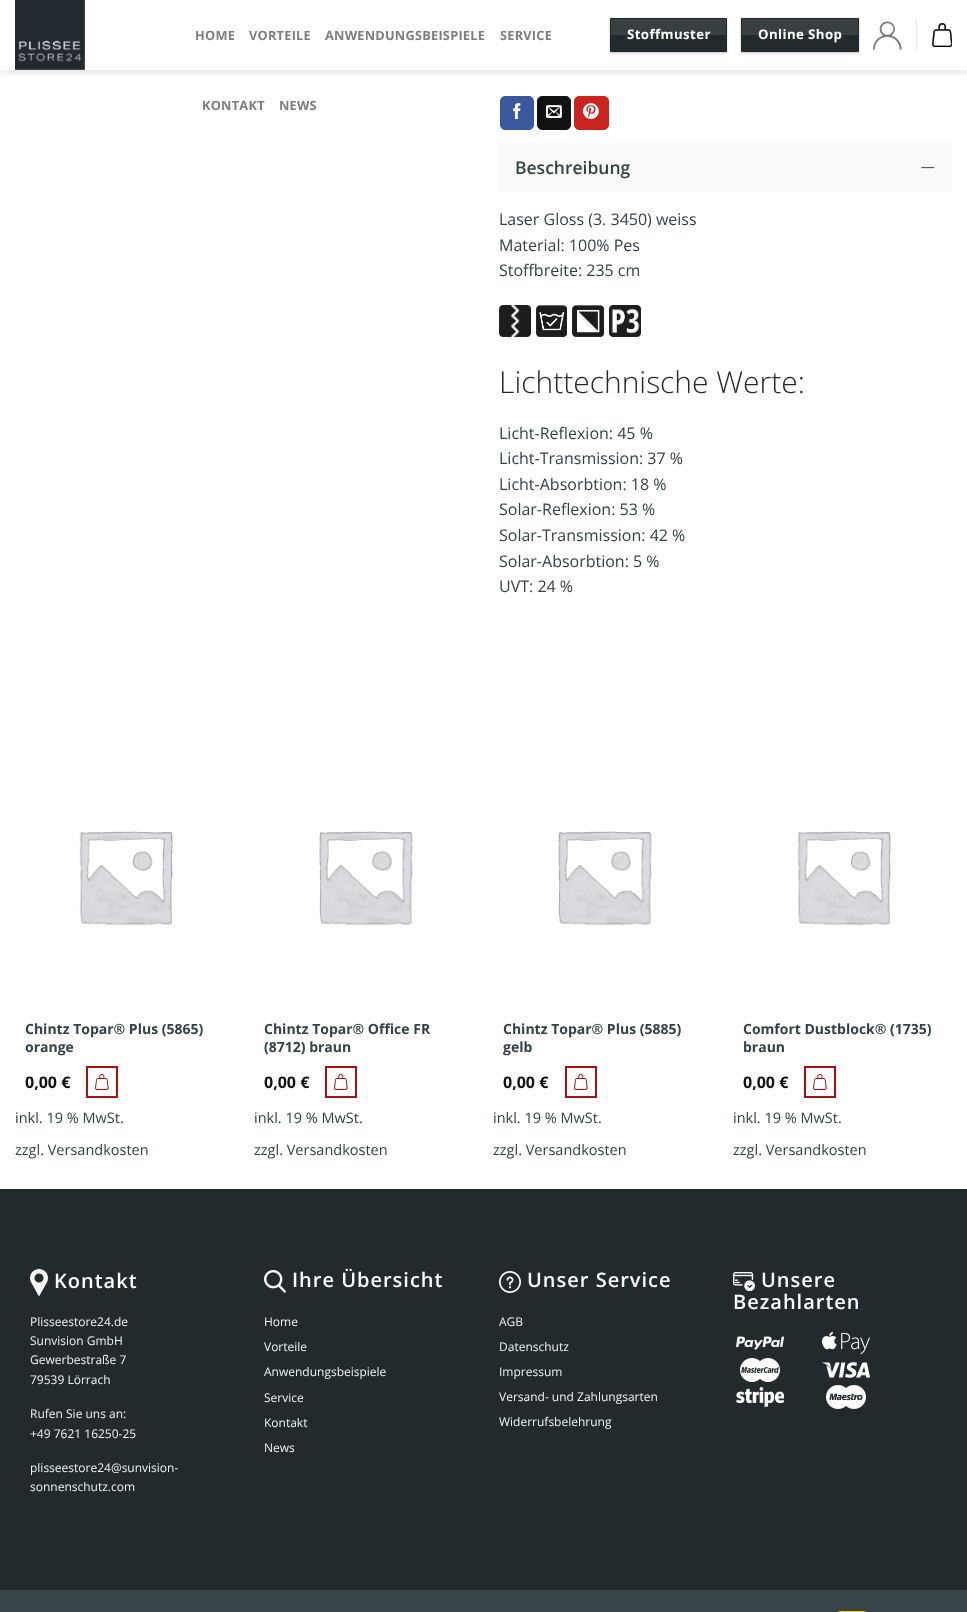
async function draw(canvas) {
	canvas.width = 967;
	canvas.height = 1612;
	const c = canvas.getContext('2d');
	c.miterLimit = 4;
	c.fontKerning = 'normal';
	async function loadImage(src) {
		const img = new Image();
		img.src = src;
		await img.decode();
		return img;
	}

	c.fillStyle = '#fff';
	c.fillRect(0, 0, 967, 1612);
	c.drawImage(await loadImage('img4.png'), 763, 0, 14, 15);
	c.save();
	c.beginPath();
	c.rect(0, 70, 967, 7);
	c.clip();
	c.fillStyle = '#00000026';
	c.filter = 'blur(5px)';
	c.beginPath();
	c.rect(1, 1, 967, 70);
	c.fill();
	c.filter = 'none';
	c.restore();
	c.drawImage(await loadImage('img1.png'), 15, 0, 70, 70);
	c.letterSpacing = '0.25px';
	c.font = 'bold 12.75px Open Sans';
	c.fillStyle = '#7d7d7d';
	for (const [text, x, y] of [
		['HOME', 195, 40],
		['VORTEILE', 249, 40],
		['ANWENDUNGSBEISPIELE', 325, 40],
		['SERVICE', 500, 40],
		['KONTAKT', 202, 110],
		['NEWS', 279, 110],
	]) {
		c.fillText(text, x, y);
	}
	c.fillStyle = '#0000003d';
	c.filter = 'blur(1px)';
	c.beginPath();
	c.rect(610, 19, 117, 34);
	c.fill();
	c.filter = 'none';
	c.fillStyle = '#222a2e';
	c.beginPath();
	c.rect(610.5, 18.5, 116, 33);
	c.fill();
	c.strokeStyle = '#20282c';
	c.stroke();
	c.fillStyle = '#ffffff1a';
	c.fillRect(611, 19, 115, 16);
	c.letterSpacing = '0.4px';
	c.font = 'bold 13.25px Open Sans';
	c.fillStyle = '#fff';
	c.fillText('Stoffmuster', 627, 39);
	c.fillStyle = '#0000003d';
	c.filter = 'blur(1px)';
	c.beginPath();
	c.rect(741, 19, 118, 34);
	c.fill();
	c.filter = 'none';
	c.fillStyle = '#222a2e';
	c.beginPath();
	c.rect(741.5, 18.5, 117, 33);
	c.fill();
	c.stroke();
	c.fillStyle = '#ffffff1a';
	c.fillRect(742, 19, 116, 16);
	c.fillStyle = '#fff';
	c.fillText('Online Shop', 758, 39);
	c.drawImage(await loadImage('img2.png'), 873, 21, 29, 29);
	c.fillStyle = '#e6e6e6';
	c.fillRect(916, 20, 1, 30);
	c.drawImage(await loadImage('img3.png'), 932, 23, 20, 24);
	c.fillStyle = '#3a589d';
	c.beginPath();
	c.roundRect(500.5, 96.5, 33, 33, 4.5);
	c.fill();
	c.strokeStyle = '#3a589d';
	c.stroke();
	c.drawImage(await loadImage('img5.png'), 512, 103, 9, 16);
	c.fillStyle = '#111';
	c.beginPath();
	c.roundRect(537.5, 96.5, 33, 33, 4.5);
	c.fill();
	c.strokeStyle = '#111';
	c.stroke();
	c.drawImage(await loadImage('img6.png'), 546, 105, 16, 13);
	c.fillStyle = '#cb2320';
	c.beginPath();
	c.roundRect(574.5, 96.5, 34, 33, 4.5);
	c.fill();
	c.strokeStyle = '#cb2320';
	c.stroke();
	c.drawImage(await loadImage('img7.png'), 583, 103, 16, 16);
	c.fillStyle = '#fafafa';
	c.fillRect(499, 143, 453, 49);
	c.letterSpacing = '0px';
	c.font = '600 17.5px Open Sans';
	c.fillStyle = '#344246';
	c.fillText('Beschreibung', 515, 174);
	c.drawImage(await loadImage('img8.png'), 921, 167, 14, 2);
	c.font = '16px Open Sans';
	for (const [text, x, y] of [
		['Laser Gloss (3. 3450) weiss', 499, 225],
		['Material: 100% Pes', 499, 251],
		['Stoffbreite: 235 cm', 499, 276],
	]) {
		c.fillText(text, x, y);
	}
	c.drawImage(await loadImage('img9.png'), 499, 305, 32, 32);
	c.drawImage(await loadImage('img10.png'), 536, 305, 31, 32);
	c.drawImage(await loadImage('img11.png'), 572, 305, 32, 32);
	c.drawImage(await loadImage('img12.png'), 609, 305, 32, 32);
	c.font = '300 30px Open Sans';
	c.fillStyle = '#222a2e';
	c.fillText('Lichttechnische Werte:', 499, 393);
	c.font = '16px Open Sans';
	c.fillStyle = '#344246';
	for (const [text, x, y] of [
		['Licht-Reflexion: 45 %', 499, 439],
		['Licht-Transmission: 37 %', 499, 464],
		['Licht-Absorbtion: 18 %', 499, 490],
		['Solar-Reflexion: 53 %', 499, 515],
		['Solar-Transmission: 42 %', 499, 541],
		['Solar-Absorbtion: 5 %', 499, 567],
		['UVT: 24 %', 499, 592],
	]) {
		c.fillText(text, x, y);
	}
	c.drawImage(await loadImage('img13.png'), 15, 744, 219, 263);
	c.font = 'bold 14px Open Sans';
	c.fillText('Chintz Topar® Plus (5865)', 25, 1034);
	c.fillText('orange', 25, 1052);
	c.font = 'bold 16px Open Sans';
	c.fillStyle = '#111';
	c.fillText('0,00 €', 25, 1088);
	c.strokeStyle = '#a81010';
	c.lineWidth = 2;
	c.strokeRect(87, 1067, 30, 30);
	c.drawImage(await loadImage('img14.png'), 95, 1074, 14, 16);
	c.font = '14.5px Open Sans';
	c.fillStyle = '#344246';
	c.fillText('inkl. 19 % MwSt.', 15, 1123);
	c.fillText('zzgl. Versandkosten', 15, 1155);
	c.drawImage(await loadImage('img15.png'), 254, 744, 220, 263);
	c.font = 'bold 14px Open Sans';
	c.fillText('Chintz Topar® Office FR', 264, 1034);
	c.fillText('(8712) braun', 264, 1052);
	c.font = 'bold 16px Open Sans';
	c.fillStyle = '#111';
	c.fillText('0,00 €', 264, 1088);
	c.strokeRect(326, 1067, 30, 30);
	c.drawImage(await loadImage('img14.png'), 334, 1074, 14, 16);
	c.font = '14.5px Open Sans';
	c.fillStyle = '#344246';
	c.fillText('inkl. 19 % MwSt.', 254, 1123);
	c.fillText('zzgl. Versandkosten', 254, 1155);
	c.drawImage(await loadImage('img16.png'), 493, 744, 220, 263);
	c.font = 'bold 14px Open Sans';
	c.fillText('Chintz Topar® Plus (5885)', 503, 1034);
	c.fillText('gelb', 503, 1052);
	c.font = 'bold 16px Open Sans';
	c.fillStyle = '#111';
	c.fillText('0,00 €', 503, 1088);
	c.strokeRect(566, 1067, 30, 30);
	c.drawImage(await loadImage('img14.png'), 574, 1074, 14, 16);
	c.font = '14.5px Open Sans';
	c.fillStyle = '#344246';
	c.fillText('inkl. 19 % MwSt.', 493, 1123);
	c.fillText('zzgl. Versandkosten', 493, 1155);
	c.drawImage(await loadImage('img17.png'), 733, 744, 219, 263);
	c.font = 'bold 14px Open Sans';
	c.fillText('Comfort Dustblock® (1735)', 743, 1034);
	c.fillText('braun', 743, 1052);
	c.font = 'bold 16px Open Sans';
	c.fillStyle = '#111';
	c.fillText('0,00 €', 743, 1088);
	c.strokeRect(805, 1067, 30, 30);
	c.drawImage(await loadImage('img14.png'), 813, 1074, 14, 16);
	c.font = '14.5px Open Sans';
	c.fillStyle = '#344246';
	c.fillText('inkl. 19 % MwSt.', 733, 1123);
	c.fillText('zzgl. Versandkosten', 733, 1155);
	c.fillStyle = '#222a2e';
	c.fillRect(0, 1189, 967, 401);
	c.drawImage(await loadImage('img18.png'), 30, 1269, 18, 27);
	c.letterSpacing = '1px';
	c.font = '600 20px Open Sans';
	c.fillStyle = '#fff';
	c.fillText('Kontakt', 54, 1288);
	c.letterSpacing = '0px';
	c.font = '12px Open Sans';
	c.fillStyle = '#f1f1f1';
	for (const [text, x, y] of [
		['Plisseestore24.de', 30, 1326],
		['Sunvision GmbH', 30, 1345],
		['Gewerbestraße 7', 30, 1364],
		['79539 Lörrach', 30, 1384],
		['Rufen Sie uns an:', 30, 1418],
		['+49 7621 16250-25', 30, 1438],
		['plisseestore24@sunvision-', 30, 1472],
		['sonnenschutz.com', 30, 1491],
	]) {
		c.fillText(text, x, y);
	}
	c.drawImage(await loadImage('img19.png'), 264, 1270, 22, 23);
	c.letterSpacing = '1px';
	c.font = '600 20px Open Sans';
	c.fillStyle = '#fff';
	c.fillText('Ihre Übersicht', 292, 1287);
	c.letterSpacing = '0px';
	c.font = '12px Open Sans';
	c.fillStyle = '#f1f1f1';
	for (const [text, x, y] of [
		['Home', 264, 1326],
		['Vorteile', 264, 1351],
		['Anwendungsbeispiele', 264, 1376],
		['Service', 264, 1402],
		['Kontakt', 264, 1427],
		['News', 264, 1452],
	]) {
		c.fillText(text, x, y);
	}
	c.drawImage(await loadImage('img20.png'), 499, 1271, 22, 22);
	c.letterSpacing = '1px';
	c.font = '600 20px Open Sans';
	c.fillStyle = '#fff';
	c.fillText('Unser Service', 527, 1287);
	c.letterSpacing = '0px';
	c.font = '12px Open Sans';
	c.fillStyle = '#f1f1f1';
	for (const [text, x, y] of [
		['AGB', 499, 1326],
		['Datenschutz', 499, 1351],
		['Impressum', 499, 1376],
		['Versand- und Zahlungsarten', 499, 1401],
		['Widerrufsbelehrung', 499, 1426],
	]) {
		c.fillText(text, x, y);
	}
	c.drawImage(await loadImage('img21.png'), 733, 1272, 22, 19);
	c.letterSpacing = '1px';
	c.font = '600 20px Open Sans';
	c.fillStyle = '#fff';
	c.fillText('Unsere', 761, 1287);
	c.fillText('Bezahlarten', 733, 1309);
	c.drawImage(await loadImage('img22.png'), 736, 1336, 48, 14);
	c.drawImage(await loadImage('img23.png'), 822, 1331, 48, 24);
	c.drawImage(await loadImage('img24.png'), 740, 1358, 40, 24);
	c.drawImage(await loadImage('img25.png'), 822, 1362, 48, 16);
	c.drawImage(await loadImage('img26.png'), 736, 1387, 48, 20);
	c.drawImage(await loadImage('img27.png'), 826, 1385, 40, 24);
	c.fillStyle = '#39444b';
	c.fillRect(0, 1590, 967, 22);
	c.drawImage(await loadImage('img28.png'), 838, 1611, 28, 1);
}

draw(document.querySelector('canvas'));
